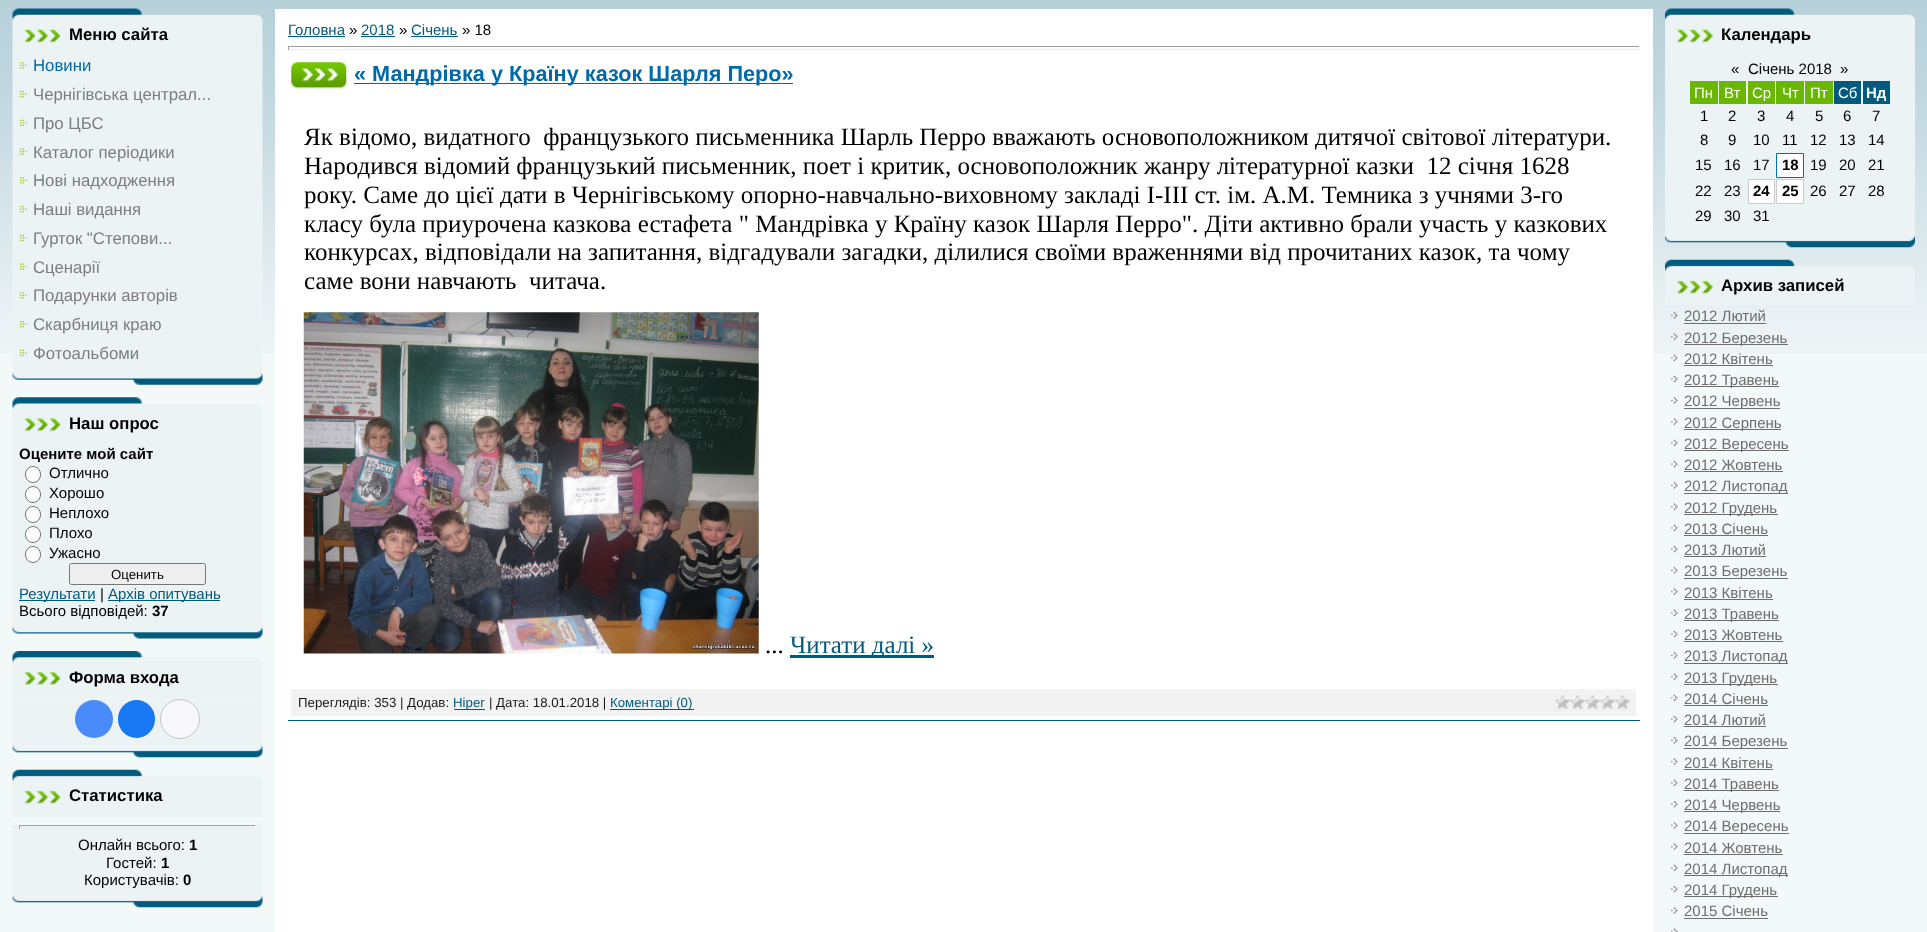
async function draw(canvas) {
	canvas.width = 1927;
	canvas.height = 932;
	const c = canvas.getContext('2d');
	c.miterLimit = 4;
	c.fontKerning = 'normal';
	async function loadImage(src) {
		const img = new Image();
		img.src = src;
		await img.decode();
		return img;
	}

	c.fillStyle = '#f3f8f9';
	c.fillRect(0, 0, 1927, 932);
	c.drawImage(await loadImage('img1.png'), 0, 0, 1927, 354);
	c.drawImage(await loadImage('img2.png'), 12, 8, 251, 48);
	c.font = 'bold 16.75px Liberation Sans';
	c.fillStyle = '#000';
	c.fillText('Меню сайта', 69, 40);
	c.drawImage(await loadImage('img3.png'), 12, 56, 251, 329);
	c.drawImage(await loadImage('img4.png'), 19, 62, 8, 7);
	c.font = '16.75px Liberation Sans';
	c.fillStyle = '#0069a9';
	c.fillText('Новини', 33, 71);
	c.drawImage(await loadImage('img5.png'), 19, 90, 8, 8);
	c.fillStyle = '#7d7d7d';
	c.fillText('Чернігівська централ...', 33, 100);
	c.drawImage(await loadImage('img6.png'), 19, 119, 8, 8);
	c.fillText('Про ЦБС', 33, 129);
	c.drawImage(await loadImage('img7.png'), 19, 148, 8, 7);
	c.fillText('Каталог періодики', 33, 158);
	c.drawImage(await loadImage('img8.png'), 19, 177, 8, 7);
	c.fillText('Нові надходження', 33, 186);
	c.drawImage(await loadImage('img5.png'), 19, 205, 8, 8);
	c.fillText('Наші видання', 33, 215);
	c.drawImage(await loadImage('img6.png'), 19, 234, 8, 8);
	c.fillText('Гурток "Степови...', 33, 244);
	c.drawImage(await loadImage('img7.png'), 19, 263, 8, 7);
	c.fillText('Сценарії', 33, 273);
	c.drawImage(await loadImage('img8.png'), 19, 292, 8, 7);
	c.fillText('Подарунки авторів', 33, 301);
	c.drawImage(await loadImage('img5.png'), 19, 320, 8, 8);
	c.fillText('Скарбниця краю', 33, 330);
	c.drawImage(await loadImage('img6.png'), 19, 349, 8, 8);
	c.fillText('Фотоальбоми', 33, 359);
	c.drawImage(await loadImage('img9.png'), 12, 397, 251, 48);
	c.font = 'bold 16.75px Liberation Sans';
	c.fillStyle = '#000';
	c.fillText('Наш опрос', 69, 429);
	c.drawImage(await loadImage('img10.png'), 12, 445, 251, 194);
	c.font = 'bold 15px Liberation Sans';
	c.fillText('Оцените мой сайт', 19, 459);
	c.fillStyle = '#fff';
	c.beginPath();
	c.roundRect(25.5, 466.5, 15, 16, 7.5);
	c.fill();
	c.strokeStyle = '#767676';
	c.stroke();
	c.font = '15px Liberation Sans';
	c.fillStyle = '#000';
	c.fillText('Отлично', 49, 478);
	c.fillStyle = '#fff';
	c.beginPath();
	c.roundRect(25.5, 486.5, 15, 16, 7.5);
	c.fill();
	c.stroke();
	c.fillStyle = '#000';
	c.fillText('Хорошо', 49, 498);
	c.fillStyle = '#fff';
	c.beginPath();
	c.roundRect(25.5, 506.5, 15, 16, 7.5);
	c.fill();
	c.stroke();
	c.fillStyle = '#000';
	c.fillText('Неплохо', 49, 518);
	c.fillStyle = '#fff';
	c.beginPath();
	c.roundRect(25.5, 526.5, 15, 16, 7.5);
	c.fill();
	c.stroke();
	c.fillStyle = '#000';
	c.fillText('Плохо', 49, 538);
	c.fillStyle = '#fff';
	c.beginPath();
	c.roundRect(25.5, 546.5, 15, 16, 7.5);
	c.fill();
	c.stroke();
	c.fillStyle = '#000';
	c.fillText('Ужасно', 49, 558);
	c.fillStyle = '#efefef';
	c.beginPath();
	c.roundRect(69.5, 563.5, 136, 21, 2);
	c.fill();
	c.stroke();
	c.font = '13.25px Liberation Sans';
	c.fillStyle = '#000';
	c.fillText('Оценить', 111, 579);
	c.fillStyle = '#005b7f';
	c.fillRect(19, 600, 76, 1);
	c.font = '15px Liberation Sans';
	c.fillText('Результати', 19, 599);
	c.fillStyle = '#000';
	c.fillText('|', 100, 599);
	c.fillStyle = '#005b7f';
	c.fillRect(108, 600, 112, 1);
	c.fillText('Архів опитувань', 108, 599);
	c.fillStyle = '#000';
	c.fillText('Всього відповідей:', 19, 616);
	c.font = 'bold 15px Liberation Sans';
	c.fillText('37', 152, 616);
	c.drawImage(await loadImage('img11.png'), 12, 651, 251, 48);
	c.font = 'bold 16.75px Liberation Sans';
	c.fillText('Форма входа', 69, 683);
	c.drawImage(await loadImage('img12.png'), 12, 699, 251, 59);
	c.fillStyle = '#498bfa';
	c.beginPath();
	c.arc(94, 719, 19, 0, 2 * Math.PI);
	c.fill();
	c.fillStyle = '#1877f2';
	c.beginPath();
	c.roundRect(118, 700, 37, 38, 18.5);
	c.fill();
	c.fillStyle = '#f8f8fc';
	c.beginPath();
	c.arc(180, 719, 19.5, 0, 2 * Math.PI);
	c.fill();
	c.strokeStyle = '#c4c4c4';
	c.stroke();
	c.drawImage(await loadImage('img13.png'), 12, 769, 251, 48);
	c.fillStyle = '#000';
	c.fillText('Статистика', 69, 801);
	c.drawImage(await loadImage('img14.png'), 12, 825, 251, 83);
	for (const [x, y, w, h, color] of [
		[19, 825, 237, 1, '#9f9f9f'],
		[255, 825, 1, 4, '#eee'],
		[19, 828, 237, 1, '#eee'],
		[19, 825, 1, 4, '#9f9f9f'],
	]) {
		c.fillStyle = color;
		c.fillRect(x, y, w, h);
	}
	c.font = '15px Liberation Sans';
	c.fillStyle = '#000';
	c.fillText('Онлайн всього:', 78, 850);
	c.font = 'bold 15px Liberation Sans';
	c.fillText('1', 189, 850);
	c.font = '15px Liberation Sans';
	c.fillText('Гостей:', 106, 868);
	c.font = 'bold 15px Liberation Sans';
	c.fillText('1', 161, 868);
	c.font = '15px Liberation Sans';
	c.fillText('Користувачів:', 84, 885);
	c.font = 'bold 15px Liberation Sans';
	c.fillText('0', 183, 885);
	c.fillStyle = '#fff';
	c.fillRect(275, 9, 1378, 923);
	c.font = '15px Liberation Sans';
	c.fillStyle = '#005b7f';
	c.fillText('Головна', 288, 35);
	c.fillRect(288, 36, 57, 1);
	c.fillStyle = '#000';
	c.fillText('»', 349, 35);
	c.fillStyle = '#005b7f';
	c.fillText('2018', 361, 35);
	c.fillRect(361, 36, 34, 1);
	c.fillStyle = '#000';
	c.fillText('»', 399, 35);
	c.fillStyle = '#005b7f';
	c.fillText('Січень', 411, 35);
	c.fillRect(411, 36, 47, 1);
	c.fillStyle = '#000';
	c.fillText('» 18', 462, 35);
	for (const [x, y, w, h, color] of [
		[288, 46, 1352, 1, '#9f9f9f'],
		[1639, 46, 1, 4, '#eee'],
		[288, 49, 1352, 1, '#eee'],
		[288, 46, 1, 4, '#9f9f9f'],
		[288, 720, 1352, 1, '#005b7f'],
	]) {
		c.fillStyle = color;
		c.fillRect(x, y, w, h);
	}
	c.drawImage(await loadImage('img15.png'), 291, 62, 56, 27);
	c.fillStyle = '#0069a9';
	c.fillRect(354, 83, 439, 1);
	c.font = 'bold 21.7px Liberation Sans';
	c.fillText('« Мандрівка у Країну казок Шарля Перо»', 354, 81);
	c.font = '25px Liberation Serif';
	c.fillStyle = '#000';
	for (const [text, x, y] of [
		['Як відомо, видатного  французького письменника Шарль Перро вважають основоположником дитячої світової літератури.', 304, 145],
		['Народився відомий французький письменник, поет і критик, основоположник жанру літературної казки  12 січня 1628', 304, 174],
		['року. Саме до цієї дати в Чернігівському опорно-навчально-виховному закладі I-III ст. ім. А.М. Темника з учнями 3-го', 304, 203],
		['класу була приурочена казкова естафета " Мандрівка у Країну казок Шарля Перро". Діти активно брали участь у казкових', 304, 232],
		['конкурсах, відповідали на запитання, відгадували загадки, ділилися своїми враженнями від прочитаних казок, та чому', 304, 260],
		['саме вони навчають  читача.', 304, 289],
	]) {
		c.fillText(text, x, y);
	}
	c.drawImage(await loadImage('img16.png'), 303, 312, 456, 342);
	c.fillText('...', 765, 653);
	c.fillStyle = '#005b7f';
	c.fillRect(790, 655, 144, 3);
	c.fillText('Читати далі »', 790, 653);
	c.fillStyle = '#f2f2f2';
	c.fillRect(291, 689, 1345, 27);
	c.font = '13.25px Liberation Sans';
	c.fillStyle = '#1a1a1a';
	c.fillText('Переглядів: 353 | Додав:', 298, 707);
	c.fillStyle = '#005b7f';
	c.fillRect(454, 709, 31, 1);
	c.fillText('Hiper', 453, 707);
	c.fillStyle = '#1a1a1a';
	c.fillText('| Дата: 18.01.2018 |', 489, 707);
	c.fillStyle = '#005b7f';
	c.fillRect(610, 709, 84, 1);
	c.fillText('Коментарі (0)', 610, 707);
	c.drawImage(await loadImage('img17.png'), 1555, 695, 75, 15);
	c.drawImage(await loadImage('img18.png'), 1665, 8, 250, 48);
	c.font = 'bold 16.75px Liberation Sans';
	c.fillStyle = '#000';
	c.fillText('Календарь', 1721, 40);
	c.drawImage(await loadImage('img19.png'), 1665, 56, 250, 192);
	c.font = '15px Liberation Sans';
	for (const [text, x, y] of [
		['«', 1731, 74],
		['Січень 2018', 1748, 74],
		['»', 1840, 74],
	]) {
		c.fillText(text, x, y);
	}
	c.fillStyle = '#69b700';
	c.fillRect(1690, 81, 28, 23);
	c.fillStyle = '#fff';
	c.fillText('Пн', 1694, 98);
	c.fillStyle = '#69b700';
	c.fillRect(1719, 81, 27, 23);
	c.fillStyle = '#fff';
	c.fillText('Вт', 1724, 98);
	c.fillStyle = '#69b700';
	c.fillRect(1748, 81, 27, 23);
	c.fillStyle = '#fff';
	c.fillText('Ср', 1752, 98);
	c.fillStyle = '#69b700';
	c.fillRect(1776, 81, 28, 23);
	c.fillStyle = '#fff';
	c.fillText('Чт', 1782, 98);
	c.fillStyle = '#69b700';
	c.fillRect(1805, 81, 28, 23);
	c.fillStyle = '#fff';
	c.fillText('Пт', 1810, 98);
	c.fillStyle = '#005b7f';
	c.fillRect(1834, 81, 27, 23);
	c.fillStyle = '#fff';
	c.fillText('Сб', 1838, 98);
	c.fillStyle = '#005b7f';
	c.fillRect(1863, 81, 27, 23);
	c.font = 'bold 15px Liberation Sans';
	c.fillStyle = '#fff';
	c.fillText('Нд', 1866, 98);
	c.font = '15px Liberation Sans';
	c.fillStyle = '#000';
	for (const [text, x, y] of [
		['1', 1700, 121],
		['2', 1728, 121],
		['3', 1757, 121],
		['4', 1786, 121],
		['5', 1815, 121],
		['6', 1843, 121],
		['7', 1872, 121],
		['8', 1700, 145],
		['9', 1728, 145],
		['10', 1753, 145],
		['11', 1782, 145],
		['12', 1810, 145],
		['13', 1839, 145],
		['14', 1868, 145],
		['15', 1695, 170],
		['16', 1724, 170],
		['17', 1753, 170],
	]) {
		c.fillText(text, x, y);
	}
	c.fillStyle = '#fff';
	c.beginPath();
	c.rect(1776.5, 153.5, 27, 24);
	c.fill();
	c.strokeStyle = '#016ead';
	c.stroke();
	c.font = 'bold 15px Liberation Sans';
	c.fillStyle = '#000';
	c.fillText('18', 1782, 170);
	c.font = '15px Liberation Sans';
	for (const [text, x, y] of [
		['19', 1810, 170],
		['20', 1839, 170],
		['21', 1868, 170],
		['22', 1695, 196],
		['23', 1724, 196],
	]) {
		c.fillText(text, x, y);
	}
	c.fillStyle = '#fff';
	c.beginPath();
	c.rect(1748.5, 179.5, 26, 24);
	c.fill();
	c.strokeStyle = '#ccc';
	c.stroke();
	c.font = 'bold 15px Liberation Sans';
	c.fillStyle = '#000';
	c.fillText('24', 1753, 196);
	c.fillStyle = '#fff';
	c.beginPath();
	c.rect(1776.5, 179.5, 27, 24);
	c.fill();
	c.stroke();
	c.fillStyle = '#000';
	c.fillText('25', 1782, 196);
	c.font = '15px Liberation Sans';
	for (const [text, x, y] of [
		['26', 1810, 196],
		['27', 1839, 196],
		['28', 1868, 196],
		['29', 1695, 221],
		['30', 1724, 221],
		['31', 1753, 221],
	]) {
		c.fillText(text, x, y);
	}
	c.drawImage(await loadImage('img20.png'), 1665, 259, 250, 46);
	c.font = 'bold 16.75px Liberation Sans';
	c.fillText('Архив записей', 1721, 291);
	c.drawImage(await loadImage('img21.png'), 1671, 312, 7, 7);
	c.font = '15px Liberation Sans';
	c.fillStyle = '#6e6e6e';
	c.fillText('2012 Лютий', 1684, 321);
	c.fillRect(1684, 323, 82, 1);
	c.drawImage(await loadImage('img22.png'), 1671, 333, 7, 7);
	c.fillRect(1684, 344, 104, 1);
	c.fillText('2012 Березень', 1684, 343);
	c.drawImage(await loadImage('img23.png'), 1671, 354, 7, 7);
	c.fillText('2012 Квітень', 1684, 364);
	c.fillRect(1684, 365, 89, 1);
	c.drawImage(await loadImage('img24.png'), 1671, 376, 7, 7);
	c.fillRect(1684, 386, 95, 1);
	c.fillText('2012 Травень', 1684, 385);
	c.drawImage(await loadImage('img25.png'), 1671, 397, 7, 7);
	c.fillRect(1684, 408, 96, 1);
	c.fillText('2012 Червень', 1684, 406);
	c.drawImage(await loadImage('img26.png'), 1671, 418, 7, 7);
	c.fillRect(1684, 429, 97, 1);
	c.fillText('2012 Серпень', 1684, 428);
	c.drawImage(await loadImage('img23.png'), 1671, 439, 7, 7);
	c.fillRect(1684, 450, 105, 1);
	c.fillText('2012 Вересень', 1684, 449);
	c.drawImage(await loadImage('img24.png'), 1671, 461, 7, 7);
	c.fillText('2012 Жовтень', 1684, 470);
	c.fillRect(1684, 471, 99, 1);
	c.drawImage(await loadImage('img25.png'), 1671, 482, 7, 7);
	c.fillRect(1684, 493, 104, 1);
	c.fillText('2012 Листопад', 1684, 491);
	c.drawImage(await loadImage('img26.png'), 1671, 503, 7, 7);
	c.fillRect(1684, 514, 94, 1);
	c.fillText('2012 Грудень', 1684, 513);
	c.drawImage(await loadImage('img23.png'), 1671, 524, 7, 7);
	c.fillText('2013 Січень', 1684, 534);
	c.fillRect(1684, 535, 84, 1);
	c.drawImage(await loadImage('img24.png'), 1671, 546, 7, 7);
	c.fillText('2013 Лютий', 1684, 555);
	c.fillRect(1684, 556, 82, 1);
	c.drawImage(await loadImage('img25.png'), 1671, 567, 7, 7);
	c.fillRect(1684, 578, 104, 1);
	c.fillText('2013 Березень', 1684, 576);
	c.drawImage(await loadImage('img26.png'), 1671, 588, 7, 7);
	c.fillText('2013 Квітень', 1684, 598);
	c.fillRect(1684, 599, 89, 1);
	c.drawImage(await loadImage('img23.png'), 1671, 609, 7, 7);
	c.fillRect(1684, 620, 95, 1);
	c.fillText('2013 Травень', 1684, 619);
	c.drawImage(await loadImage('img24.png'), 1671, 631, 7, 7);
	c.fillText('2013 Жовтень', 1684, 640);
	c.fillRect(1684, 641, 99, 1);
	c.drawImage(await loadImage('img25.png'), 1671, 652, 7, 7);
	c.fillRect(1684, 663, 104, 1);
	c.fillText('2013 Листопад', 1684, 661);
	c.drawImage(await loadImage('img26.png'), 1671, 673, 7, 7);
	c.fillRect(1684, 684, 94, 1);
	c.fillText('2013 Грудень', 1684, 683);
	c.drawImage(await loadImage('img23.png'), 1671, 694, 7, 7);
	c.fillText('2014 Січень', 1684, 704);
	c.fillRect(1684, 705, 84, 1);
	c.drawImage(await loadImage('img24.png'), 1671, 716, 7, 7);
	c.fillText('2014 Лютий', 1684, 725);
	c.fillRect(1684, 726, 82, 1);
	c.drawImage(await loadImage('img25.png'), 1671, 737, 7, 7);
	c.fillRect(1684, 748, 104, 1);
	c.fillText('2014 Березень', 1684, 746);
	c.drawImage(await loadImage('img26.png'), 1671, 758, 7, 7);
	c.fillText('2014 Квітень', 1684, 768);
	c.fillRect(1684, 769, 89, 1);
	c.drawImage(await loadImage('img23.png'), 1671, 779, 7, 7);
	c.fillRect(1684, 790, 95, 1);
	c.fillText('2014 Травень', 1684, 789);
	c.drawImage(await loadImage('img24.png'), 1671, 801, 7, 7);
	c.fillRect(1684, 811, 96, 1);
	c.fillText('2014 Червень', 1684, 810);
	c.drawImage(await loadImage('img25.png'), 1671, 822, 7, 7);
	c.fillRect(1684, 833, 105, 1);
	c.fillText('2014 Вересень', 1684, 831);
	c.drawImage(await loadImage('img26.png'), 1671, 843, 7, 7);
	c.fillText('2014 Жовтень', 1684, 853);
	c.fillRect(1684, 854, 99, 1);
	c.drawImage(await loadImage('img23.png'), 1671, 864, 7, 7);
	c.fillRect(1684, 875, 104, 1);
	c.fillText('2014 Листопад', 1684, 874);
	c.drawImage(await loadImage('img24.png'), 1671, 886, 7, 7);
	c.fillRect(1684, 896, 94, 1);
	c.fillText('2014 Грудень', 1684, 895);
	c.drawImage(await loadImage('img25.png'), 1671, 907, 7, 7);
	c.fillText('2015 Січень', 1684, 916);
	c.fillRect(1684, 918, 84, 1);
	c.drawImage(await loadImage('img27.png'), 1671, 928, 7, 4);
}

draw(document.querySelector('canvas'));
